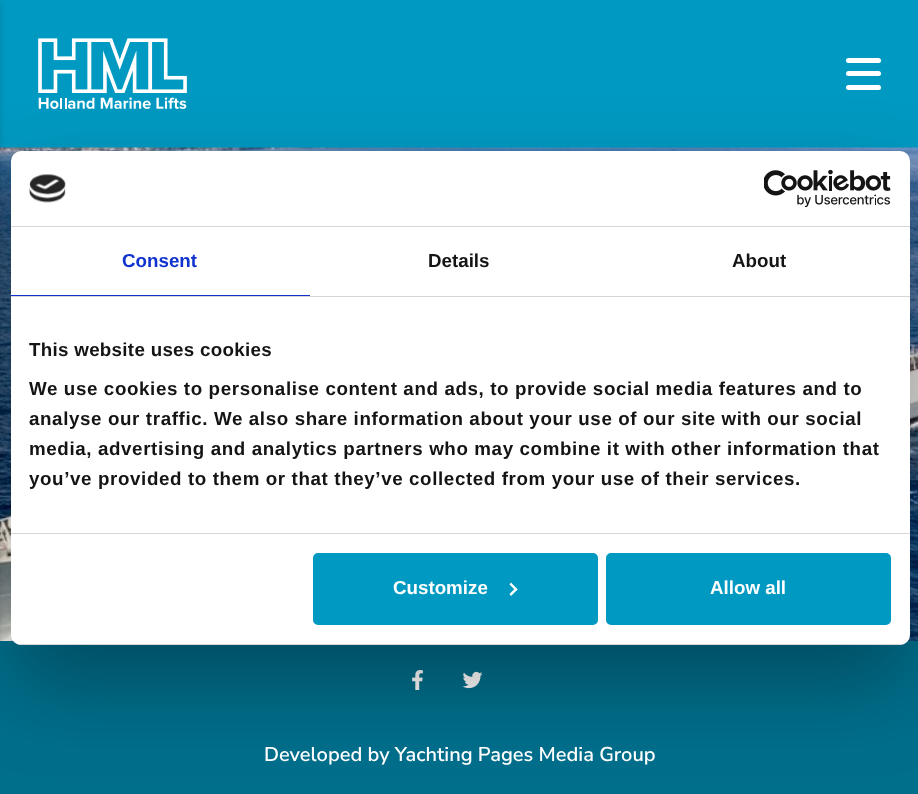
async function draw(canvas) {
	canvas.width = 918;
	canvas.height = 794;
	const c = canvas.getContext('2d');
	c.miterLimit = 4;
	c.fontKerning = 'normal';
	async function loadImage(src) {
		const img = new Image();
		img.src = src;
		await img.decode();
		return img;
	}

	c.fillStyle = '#0099c1';
	c.fillRect(0, 0, 918, 794);
	c.drawImage(await loadImage('img2.png'), 0, 147, 918, 494);
	c.fillStyle = '#00000033';
	c.filter = 'blur(3px)';
	c.beginPath();
	c.rect(-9, 4, 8, 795);
	c.fill();
	c.filter = 'none';
	c.drawImage(await loadImage('img1.png'), 38, 38, 149, 71);
	c.fillStyle = '#fff';
	c.beginPath();
	c.roundRect(846, 58, 35, 5, 2.5);
	c.fill();
	c.beginPath();
	c.roundRect(846, 71, 35, 5, 2.5);
	c.fill();
	c.beginPath();
	c.roundRect(846, 85, 35, 5, 2.5);
	c.fill();
	c.fillStyle = '#006f8c';
	c.fillRect(0, 641, 918, 153);
	c.drawImage(await loadImage('img5.png'), 412, 670, 11, 20);
	c.drawImage(await loadImage('img6.png'), 462, 671, 21, 18);
	c.fillStyle = '#0000004d';
	c.filter = 'blur(42.5px)';
	c.beginPath();
	c.roundRect(11, 191, 899, 494, 10);
	c.fill();
	c.filter = 'none';
	c.fillStyle = '#fff';
	c.beginPath();
	c.roundRect(11, 151, 899, 494, 10);
	c.fill();
	c.fillStyle = '#d6d6d6';
	c.fillRect(11, 226, 899, 1);
	c.drawImage(await loadImage('img3.png'), 29, 174, 37, 29);
	c.drawImage(await loadImage('img4.png'), 764, 170, 127, 38);
	c.fillRect(11, 296, 899, 1);
	c.fillStyle = '#1032cf';
	c.fillRect(11, 295, 299, 1);
	c.font = 'bold 18.75px Liberation Sans';
	c.fillText('Consent', 122, 267);
	c.fillStyle = '#141414';
	c.fillText('Details', 428, 267);
	c.fillText('About', 732, 267);
	c.fillStyle = '#d6d6d6';
	c.fillRect(11, 533, 899, 1);
	c.letterSpacing = '0.3px';
	c.fillStyle = '#141414';
	c.fillText('This website uses cookies', 29, 356);
	c.letterSpacing = '0.62px';
	for (const [text, x, y] of [
		['We use cookies to personalise content and ads, to provide social media features and to', 29, 395],
		['analyse our traffic. We also share information about your use of our site with our social', 29, 425],
		['media, advertising and analytics partners who may combine it with other information that', 29, 455],
		['you’ve provided to them or that they’ve collected from your use of their services.', 29, 485],
	]) {
		c.fillText(text, x, y);
	}
	c.save();
	c.beginPath();
	c.roundRect(11, 151, 899, 494, 10);
	c.clip();
	c.fillStyle = '#d6d6d6';
	c.fillRect(11, 644, 899, 1);
	c.restore();
	c.fillStyle = '#0099c1';
	c.beginPath();
	c.roundRect(314.5, 554.5, 282, 69, 3.5);
	c.fill();
	c.strokeStyle = '#0099c1';
	c.lineWidth = 3;
	c.stroke();
	c.letterSpacing = '0px';
	c.fillStyle = '#fff';
	c.fillText('Customize', 393, 594);
	c.beginPath();
	c.moveTo(511, 582.5);
	c.lineTo(517.5, 589.5);
	c.lineTo(516, 591);
	c.lineTo(509.5, 584.5);
	c.closePath();
	c.fill();
	c.beginPath();
	c.moveTo(516, 587.5);
	c.lineTo(517.5, 589.5);
	c.lineTo(511, 596);
	c.lineTo(509.5, 594);
	c.closePath();
	c.fill();
	c.fillStyle = '#0099c1';
	c.beginPath();
	c.roundRect(607.5, 554.5, 282, 69, 3.5);
	c.fill();
	c.stroke();
	c.fillStyle = '#fff';
	c.fillText('Allow all', 710, 594);
	c.font = '600 20px Nunito Sans';
	c.fillText('Developed by Yachting Pages Media Group', 264, 761);
}

draw(document.querySelector('canvas'));
